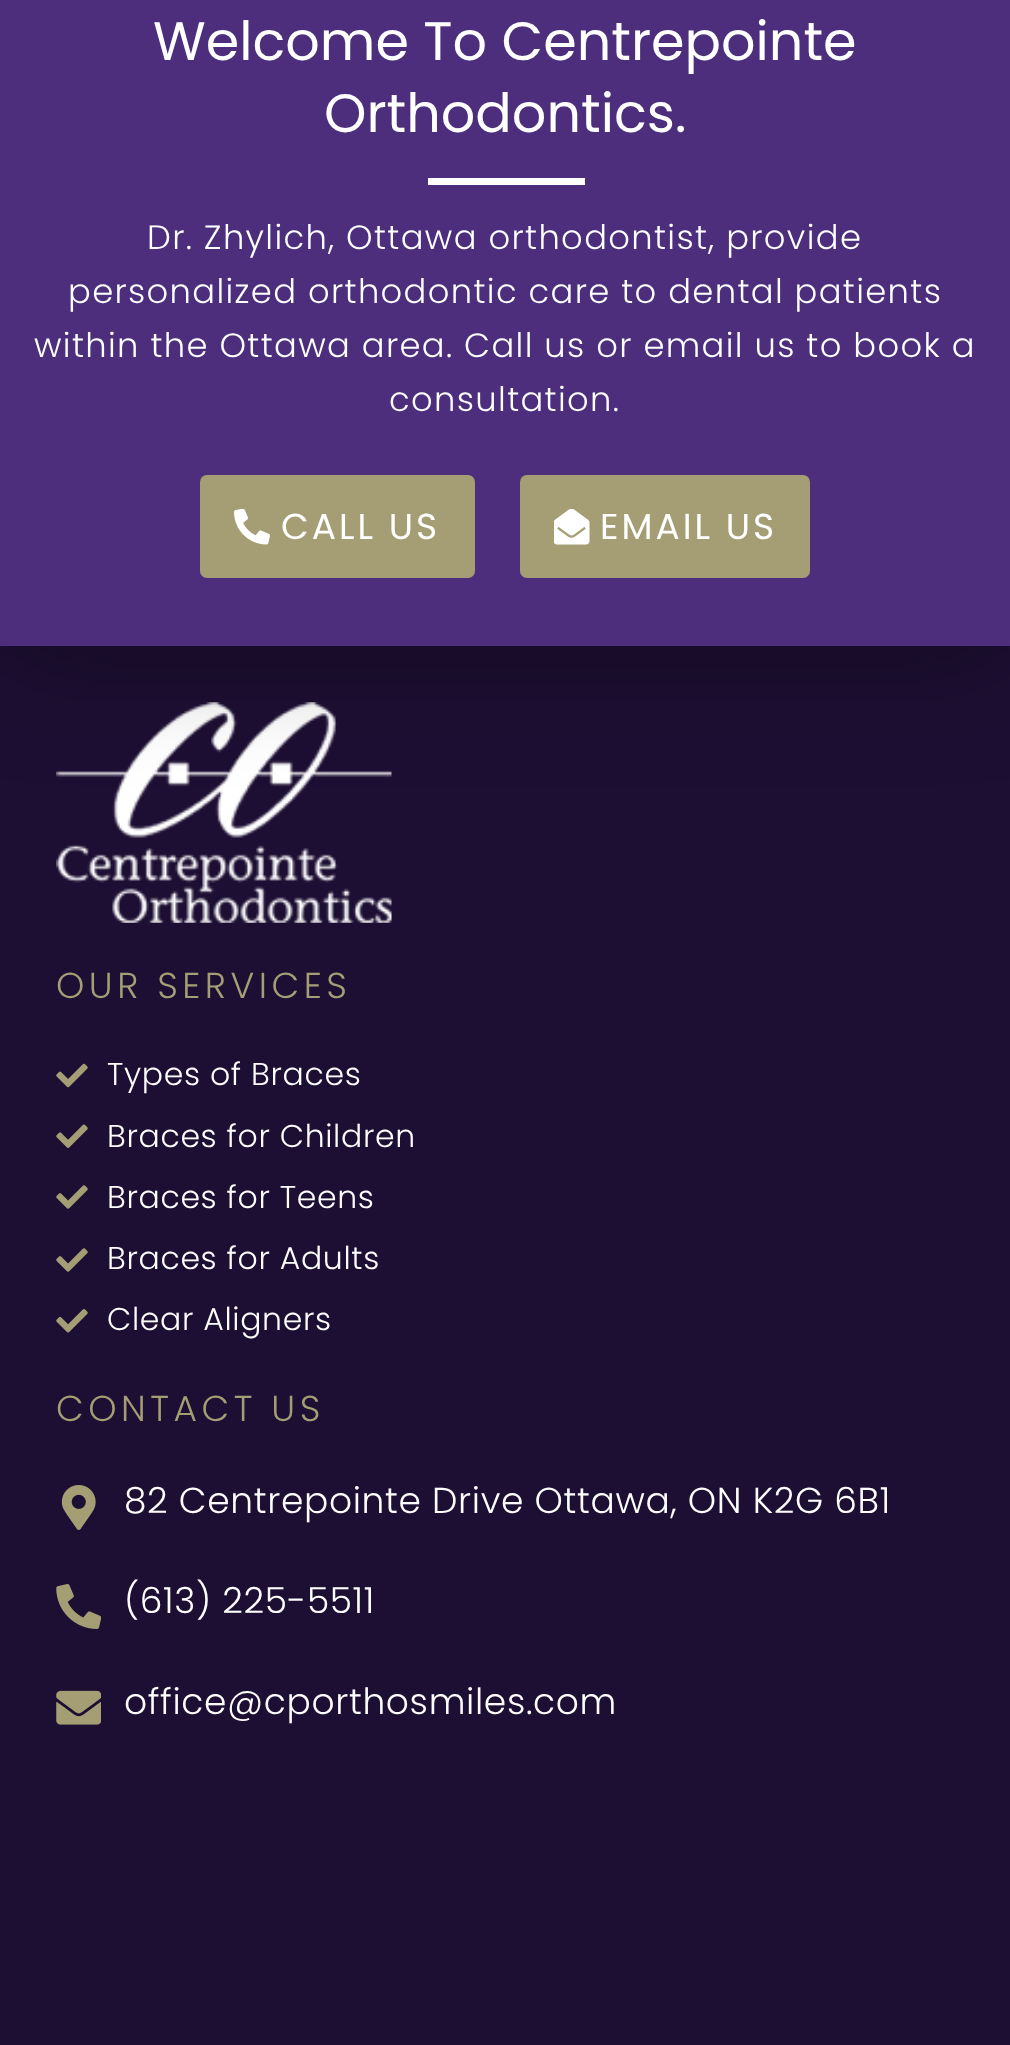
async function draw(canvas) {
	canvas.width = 1010;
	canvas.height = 2045;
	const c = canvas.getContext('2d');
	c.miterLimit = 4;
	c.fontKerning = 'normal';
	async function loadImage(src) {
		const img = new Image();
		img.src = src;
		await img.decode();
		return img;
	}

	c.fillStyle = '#1d0f33';
	c.fillRect(0, 0, 1010, 2045);
	c.drawImage(await loadImage('img3.png'), 56, 702, 336, 221);
	c.fillStyle = '#00000054';
	c.filter = 'blur(59.5px)';
	c.beginPath();
	c.rect(-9, -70, 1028, 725);
	c.fill();
	c.filter = 'none';
	c.fillStyle = '#4c2e7d';
	c.fillRect(0, 0, 1010, 646);
	c.font = '54px Poppins';
	c.fillStyle = '#fff';
	c.fillText('Welcome To Centrepointe', 153, 60);
	c.fillText('Orthodontics.', 324, 132);
	c.fillRect(428, 178, 157, 7);
	c.letterSpacing = '1.35px';
	c.font = '300 33.75px Poppins';
	for (const [text, x, y] of [
		['Dr. Zhylich, Ottawa orthodontist, provide', 147, 249],
		['personalized orthodontic care to dental patients', 68, 303],
		['within the Ottawa area. Call us or email us to book a', 34, 357],
		['consultation.', 389, 411],
	]) {
		c.fillText(text, x, y);
	}
	c.fillStyle = '#a59e74';
	c.beginPath();
	c.roundRect(200, 475, 275, 103, 7);
	c.fill();
	c.drawImage(await loadImage('img1.png'), 234, 509, 36, 36);
	c.letterSpacing = '3px';
	c.font = '36px Poppins';
	c.fillStyle = '#fff';
	c.fillText('CALL US', 281, 539);
	c.fillStyle = '#a59e74';
	c.beginPath();
	c.roundRect(520, 475, 290, 103, 7);
	c.fill();
	c.drawImage(await loadImage('img2.png'), 554, 509, 36, 36);
	c.fillStyle = '#fff';
	c.fillText('EMAIL US', 600, 539);
	c.letterSpacing = '4.5px';
	c.font = '300 36px Poppins';
	c.fillStyle = '#a59e74';
	c.fillText('OUR SERVICES', 56, 998);
	c.drawImage(await loadImage('img4.png'), 56, 1063, 32, 25);
	c.letterSpacing = '0.65px';
	c.font = '300 31.5px Poppins';
	c.fillStyle = '#fff';
	c.fillText('Types of Braces', 107, 1085);
	c.drawImage(await loadImage('img5.png'), 56, 1124, 32, 24);
	c.fillText('Braces for Children', 107, 1147);
	c.drawImage(await loadImage('img6.png'), 56, 1185, 32, 24);
	c.fillText('Braces for Teens', 107, 1208);
	c.drawImage(await loadImage('img6.png'), 56, 1248, 32, 24);
	c.fillText('Braces for Adults', 107, 1269);
	c.drawImage(await loadImage('img7.png'), 56, 1309, 32, 24);
	c.fillText('Clear Aligners', 107, 1330);
	c.letterSpacing = '4.5px';
	c.font = '300 36px Poppins';
	c.fillStyle = '#a59e74';
	c.fillText('CONTACT US', 56, 1421);
	c.drawImage(await loadImage('img8.png'), 61, 1485, 35, 45);
	c.letterSpacing = '0.65px';
	c.fillStyle = '#fff';
	c.fillText('82 Centrepointe Drive Ottawa, ON K2G 6B1', 124, 1513);
	c.drawImage(await loadImage('img9.png'), 56, 1584, 45, 45);
	c.fillText('(613) 225-5511', 124, 1613);
	c.drawImage(await loadImage('img10.png'), 56, 1690, 45, 35);
	c.fillText('office@cporthosmiles.com', 124, 1714);
}

draw(document.querySelector('canvas'));
